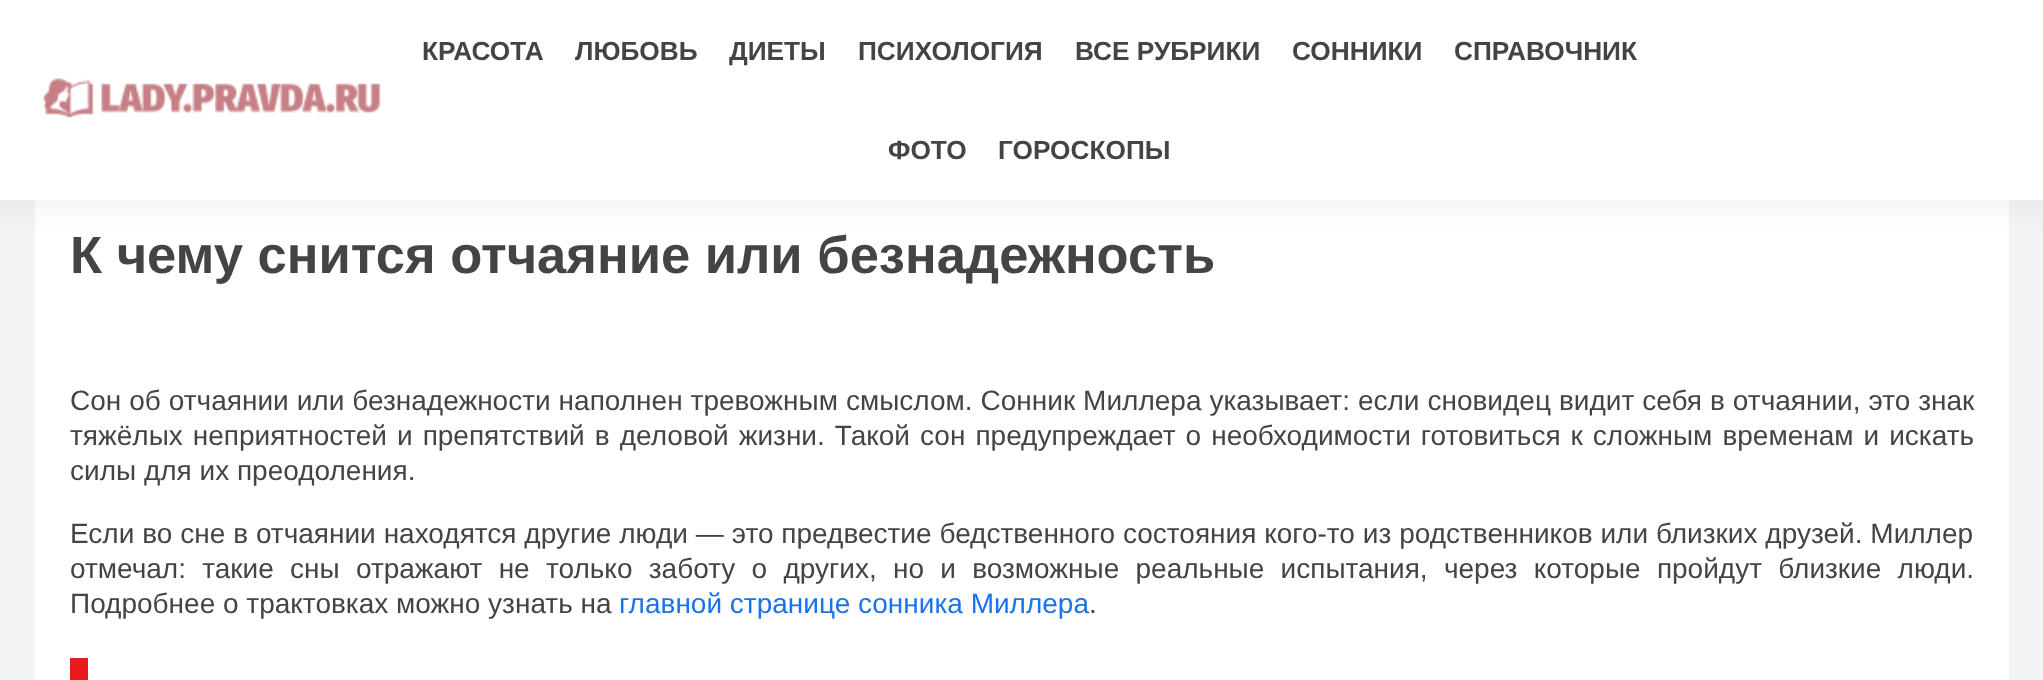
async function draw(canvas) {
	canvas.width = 2043;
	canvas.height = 680;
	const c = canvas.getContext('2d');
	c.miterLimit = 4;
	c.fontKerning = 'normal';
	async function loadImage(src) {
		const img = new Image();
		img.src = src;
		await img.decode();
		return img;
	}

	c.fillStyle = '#f1f3f5';
	c.fillRect(0, 0, 2043, 680);
	c.fillStyle = '#fff';
	c.fillRect(35, 200, 1974, 480);
	c.fillStyle = '#0000000d';
	c.filter = 'blur(13px)';
	c.beginPath();
	c.rect(-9, -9, 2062, 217);
	c.fill();
	c.filter = 'none';
	c.fillStyle = '#fff';
	c.fillRect(0, 0, 2043, 200);
	c.drawImage(await loadImage('img1.png'), 43, 77, 338, 41);
	c.font = 'bold 26.25px Liberation Sans';
	c.fillStyle = '#444';
	for (const [text, x, y] of [
		['КРАСОТА', 422, 60],
		['ЛЮБОВЬ', 575, 60],
		['ДИЕТЫ', 729, 60],
		['ПСИХОЛОГИЯ', 858, 60],
		['ВСЕ РУБРИКИ', 1075, 60],
		['СОННИКИ', 1292, 60],
		['СПРАВОЧНИК', 1454, 60],
		['ФОТО', 888, 159],
		['ГОРОСКОПЫ', 998, 159],
	]) {
		c.fillText(text, x, y);
	}
	c.font = 'bold 52.5px Liberation Sans';
	c.fillText('К чему снится отчаяние или безнадежность', 70, 273);
	c.wordSpacing = '0.2px';
	c.font = '28px Liberation Sans';
	c.fillText('Сон об отчаянии или безнадежности наполнен тревожным смыслом. Сонник Миллера указывает: если сновидец видит себя в отчаянии, это знак', 70, 410);
	c.wordSpacing = '2.25px';
	c.fillText('тяжёлых неприятностей и препятствий в деловой жизни. Такой сон предупреждает о необходимости готовиться к сложным временам и искать', 70, 445);
	c.wordSpacing = '0px';
	c.fillText('силы для их преодоления.', 70, 480);
	c.wordSpacing = '0.1px';
	c.fillText('Если во сне в отчаянии находятся другие люди — это предвестие бедственного состояния кого-то из родственников или близких друзей. Миллер', 70, 543);
	c.wordSpacing = '8.5px';
	c.fillText('отмечал: такие сны отражают не только заботу о других, но и возможные реальные испытания, через которые пройдут близкие люди.', 70, 578);
	c.wordSpacing = '0px';
	c.fillText('Подробнее о трактовках можно узнать на', 70, 613);
	c.fillStyle = '#1a73e8';
	c.fillText('главной странице сонника Миллера', 619, 613);
	c.fillStyle = '#444';
	c.fillText('.', 1089, 613);
	c.fillStyle = '#e81a1b';
	c.fillRect(70, 658, 18, 22);
}

draw(document.querySelector('canvas'));
